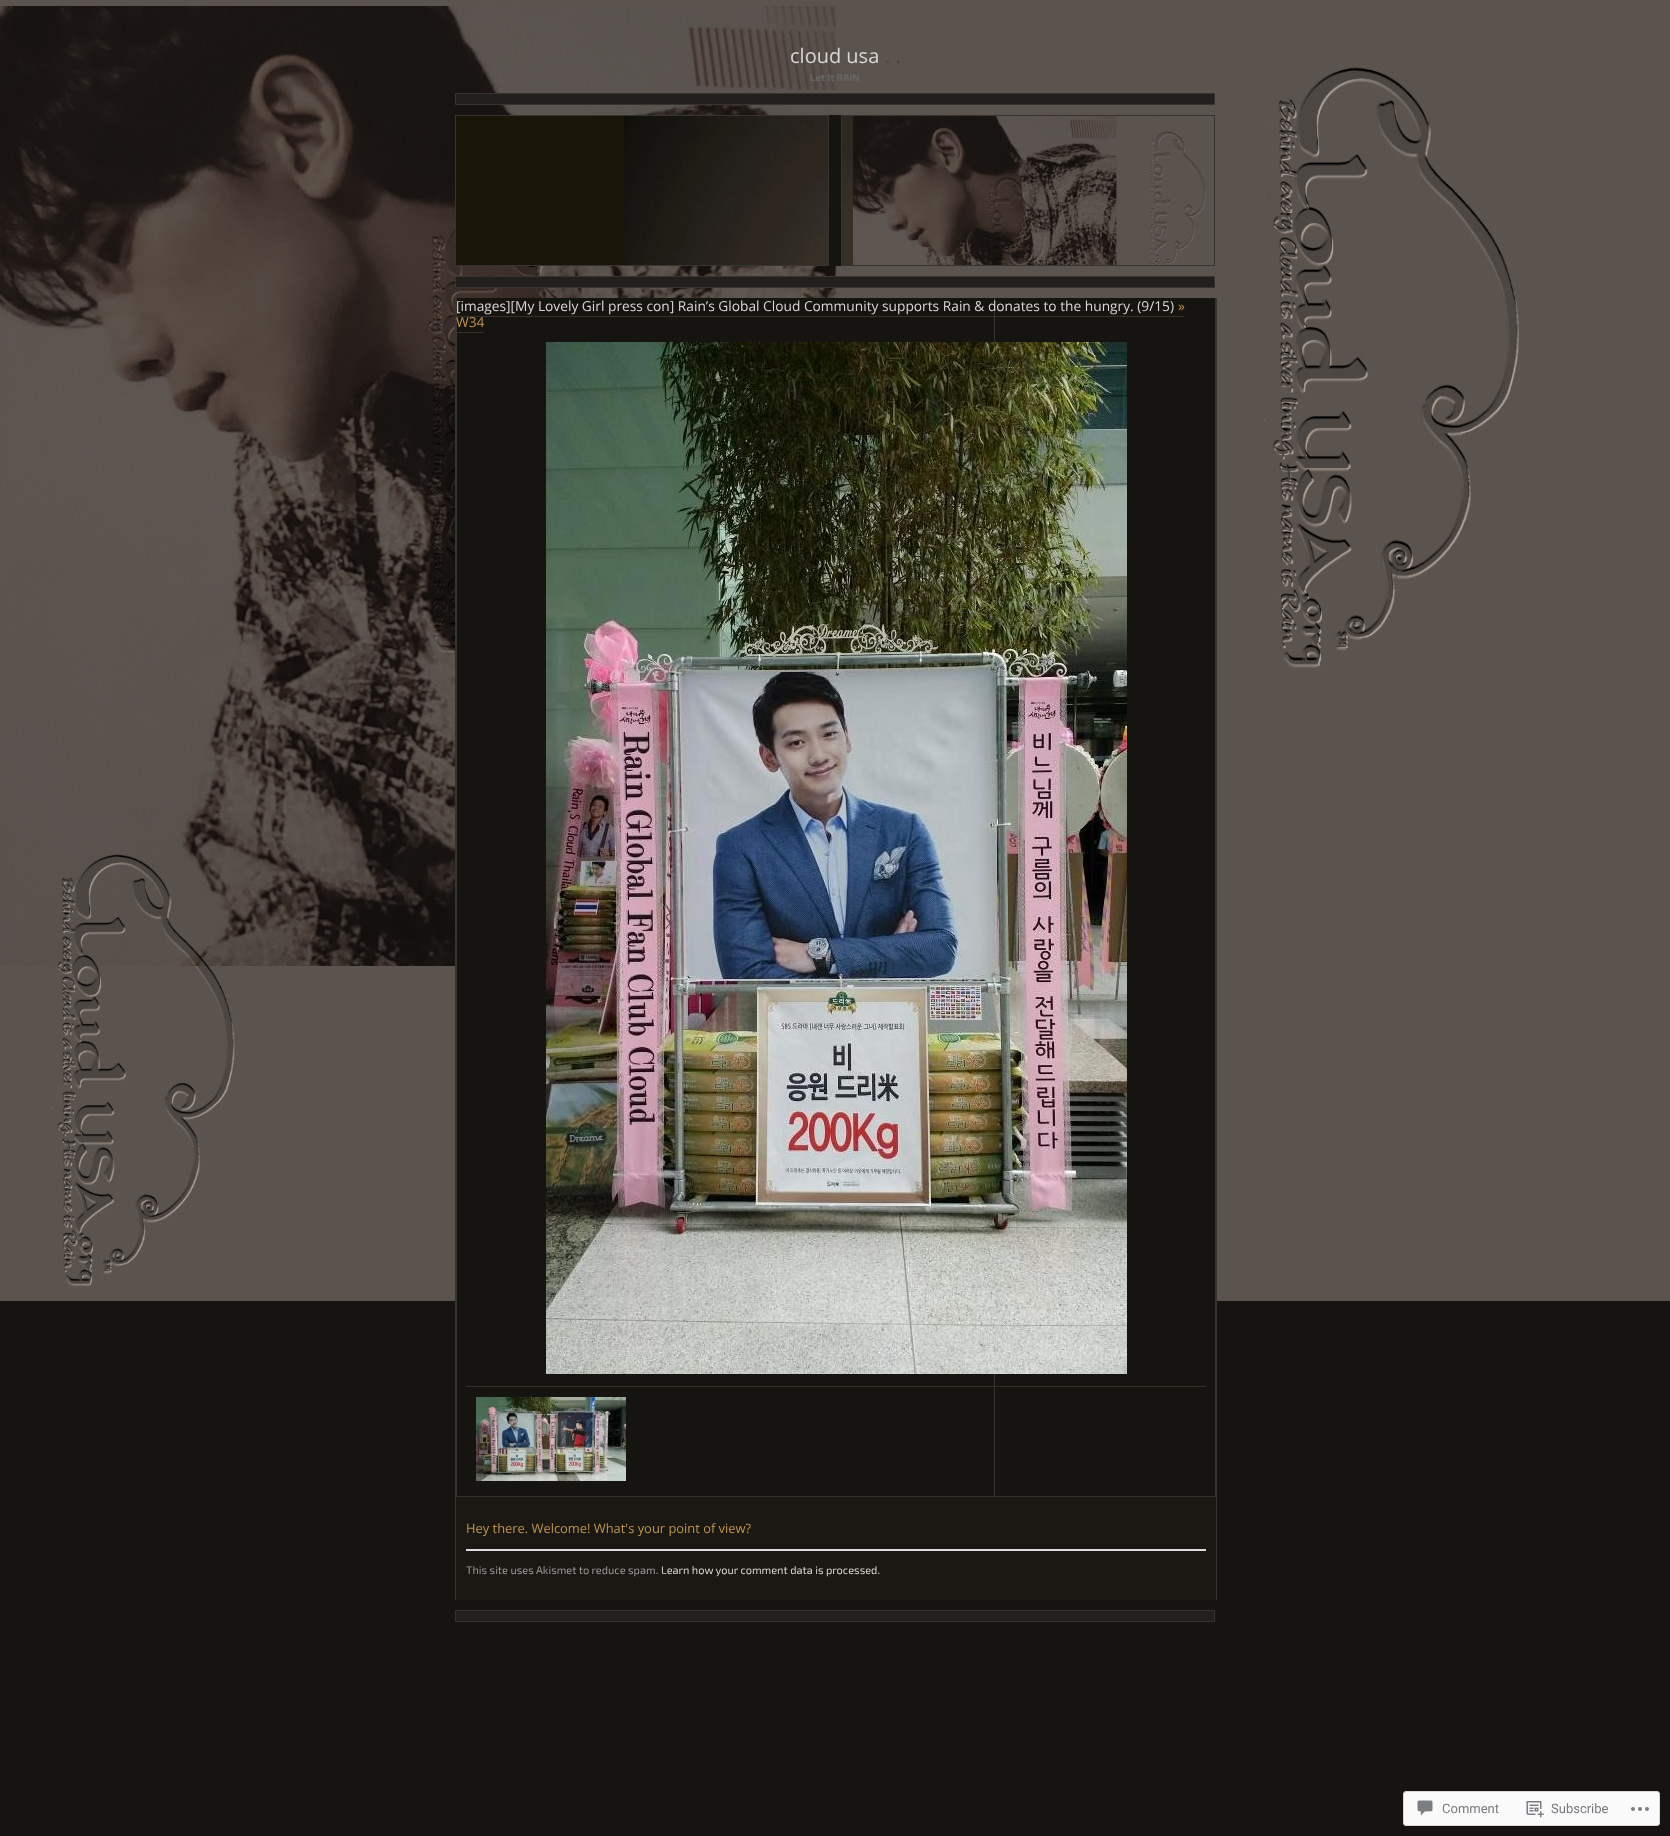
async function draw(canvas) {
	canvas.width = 1670;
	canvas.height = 1836;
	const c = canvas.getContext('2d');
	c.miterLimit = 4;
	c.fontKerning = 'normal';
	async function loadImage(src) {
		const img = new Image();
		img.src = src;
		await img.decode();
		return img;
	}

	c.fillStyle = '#161410';
	c.fillRect(0, 0, 1670, 1836);
	c.drawImage(await loadImage('img1.png'), 0, 0, 1670, 1301);
	c.font = '20px Open Sans';
	c.fillStyle = '#d8d7d3';
	c.fillText('cloud usa', 790, 63);
	c.fillStyle = '#444';
	c.fillText('. .', 885, 63);
	c.font = 'bold 10px "Exo 2"';
	c.fillStyle = '#666';
	c.fillText('Let It RAIN', 810, 81);
	c.fillStyle = '#22201d';
	c.beginPath();
	c.rect(455.5, 93.5, 759, 11);
	c.fill();
	c.strokeStyle = '#363430';
	c.stroke();
	c.drawImage(await loadImage('img3.png'), 456, 116, 758, 149);
	c.drawImage(await loadImage('img2.png'), 455, 115, 760, 151);
	c.beginPath();
	c.rect(455.5, 276.5, 759, 11);
	c.fill();
	c.stroke();
	c.drawImage(await loadImage('img4.png'), 456, 298, 760, 1198);
	c.fillStyle = '#363430';
	c.fillRect(1216, 298, 1, 1302);
	c.fillRect(455, 298, 1, 1302);
	c.font = '13.75px Open Sans';
	c.fillStyle = '#d8d7d3';
	c.fillText('[images][My Lovely Girl press con] Rain’s Global Cloud Community supports Rain & donates to the hungry. (9/15)', 456, 311);
	c.fillStyle = '#bd934f';
	c.fillText('»', 1178, 311);
	c.fillText('W34', 456, 327);
	c.fillStyle = '#35302a';
	c.fillRect(456, 316, 728, 1);
	c.fillRect(456, 332, 28, 1);
	c.drawImage(await loadImage('img5.png'), 546, 342, 581, 1032);
	c.fillRect(466, 1386, 740, 1);
	c.drawImage(await loadImage('img6.png'), 476, 1397, 150, 84);
	c.fillStyle = '#1b1814';
	c.fillRect(456, 1497, 760, 103);
	c.fillStyle = '#35302a';
	c.fillRect(456, 1496, 760, 1);
	c.font = '12.9px Open Sans';
	c.fillStyle = '#bd934f';
	c.fillText('Hey there. Welcome! What\'s your point of view?', 466, 1533);
	c.fillStyle = '#dcdcde';
	c.fillRect(466, 1549, 740, 2);
	c.font = '11px "Exo 2"';
	c.fillStyle = '#999';
	c.fillText('This site uses Akismet to reduce spam.', 466, 1574);
	c.fillStyle = '#d8d7d3';
	c.fillText('Learn how your comment data is processed.', 661, 1574);
	c.fillStyle = '#22201d';
	c.beginPath();
	c.rect(455.5, 1610.5, 759, 11);
	c.fill();
	c.stroke();
	c.fillStyle = '#fafafa';
	c.beginPath();
	c.roundRect(1403.5, 1791.5, 256, 34, 2.5);
	c.fill();
	c.strokeStyle = '#d8d8da';
	c.stroke();
	c.drawImage(await loadImage('img7.png'), 1417, 1800, 16, 16);
	c.font = '13px Roboto';
	c.fillStyle = '#767a80';
	c.fillText('Comment', 1442, 1813);
	c.drawImage(await loadImage('img8.png'), 1526, 1801, 18, 17);
	c.fillText('Subscribe', 1551, 1813);
	c.drawImage(await loadImage('img9.png'), 1631, 1807, 18, 4);
}

draw(document.querySelector('canvas'));
